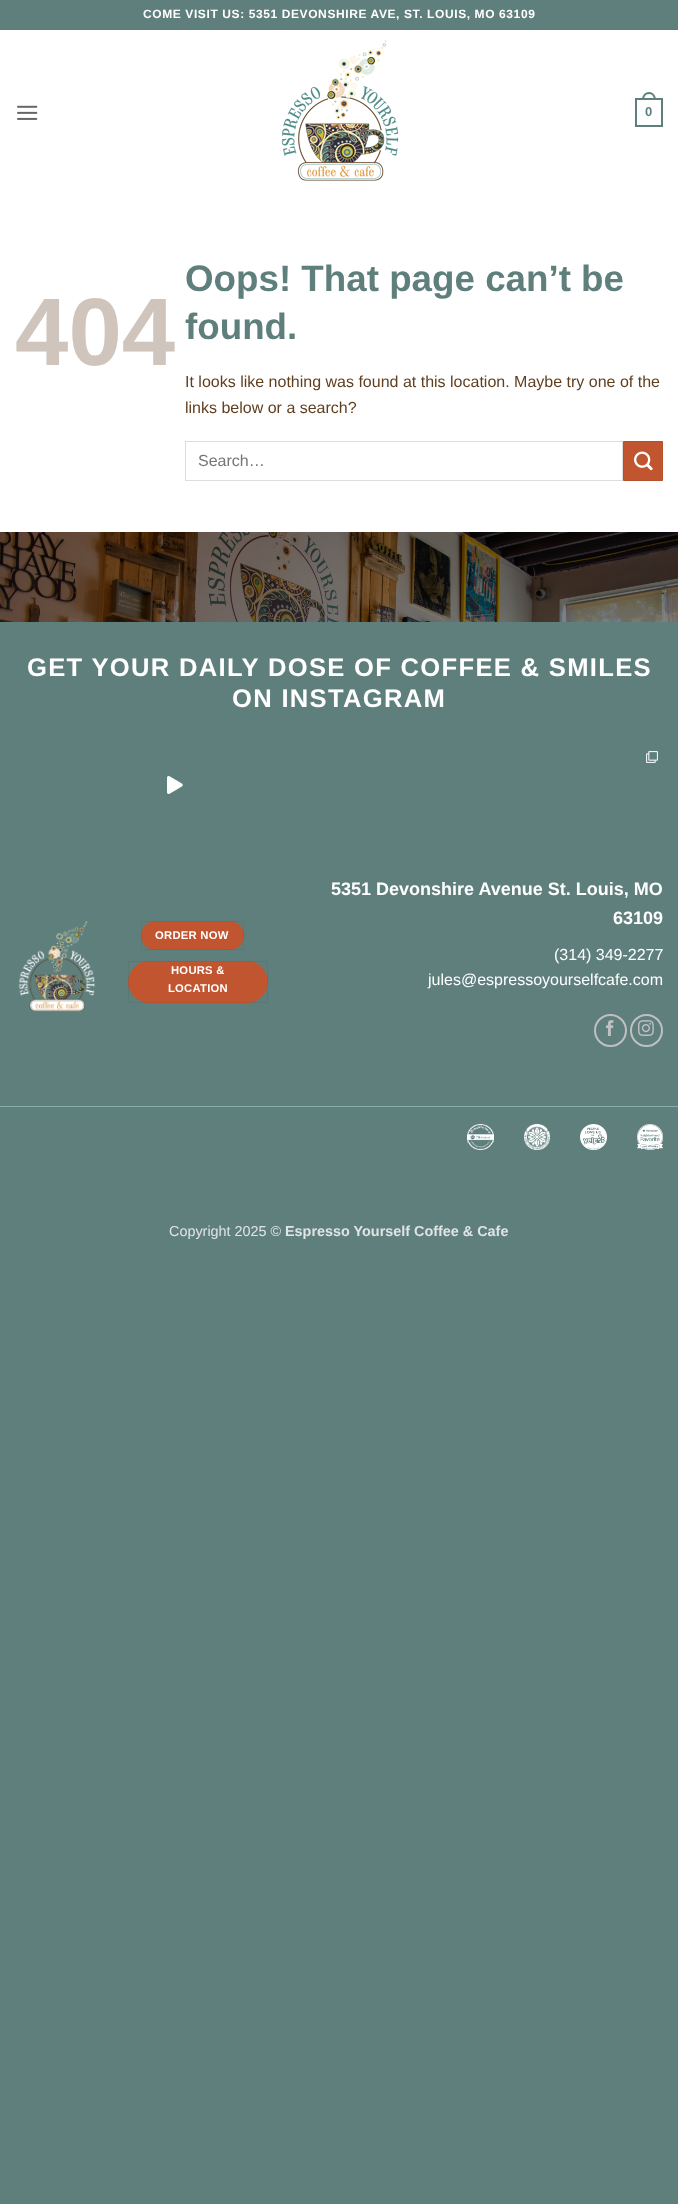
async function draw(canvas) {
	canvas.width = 678;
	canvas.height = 2204;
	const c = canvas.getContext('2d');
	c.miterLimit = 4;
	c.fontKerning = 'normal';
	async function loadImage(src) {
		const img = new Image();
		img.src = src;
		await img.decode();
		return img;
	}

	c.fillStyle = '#5f7f7d';
	c.fillRect(0, 0, 678, 2204);
	c.fillStyle = '#fff';
	c.fillRect(0, 30, 678, 502);
	c.letterSpacing = '0.6px';
	c.font = 'bold 12px Liberation Sans';
	c.fillText('COME VISIT US: 5351 DEVONSHIRE AVE, ST. LOUIS, MO 63109', 143, 18);
	c.drawImage(await loadImage('img1.png'), 17, 105, 21, 15);
	c.drawImage(await loadImage('img2.png'), 281, 40, 118, 141);
	c.strokeStyle = '#5f7f7d';
	c.lineWidth = 2;
	c.strokeRect(636, 99, 26, 27);
	c.fillStyle = '#5f7f7d';
	c.beginPath();
	c.moveTo(649, 92);
	c.bezierCurveTo(653.5, 92, 656, 96, 656, 100);
	c.lineTo(642, 100);
	c.bezierCurveTo(642, 96, 644.5, 92, 649, 92);
	c.closePath();
	c.moveTo(649, 94);
	c.bezierCurveTo(652.5, 94, 654, 97, 654, 100);
	c.lineTo(644, 100);
	c.bezierCurveTo(644, 97, 645.5, 94, 649, 94);
	c.closePath();
	c.fill('evenodd');
	c.letterSpacing = '0px';
	c.font = 'bold 13px Liberation Sans';
	c.fillText('0', 645, 116);
	c.font = 'bold 96px Liberation Sans';
	c.fillStyle = '#cfc5bc';
	c.fillText('404', 15, 365);
	c.font = 'bold 36.75px Liberation Sans';
	c.fillStyle = '#5f7f7d';
	c.fillText('Oops! That page can’t be', 185, 291);
	c.fillText('found.', 185, 339);
	c.font = '16px Liberation Sans';
	c.fillStyle = '#603f1f';
	c.fillText('It looks like nothing was found at this location. Maybe try one of the', 185, 387);
	c.fillText('links below or a search?', 185, 413);
	c.strokeStyle = '#ddd';
	c.lineWidth = 1;
	c.strokeRect(185.5, 441.5, 437, 39);
	c.fillStyle = '#757575';
	c.fillText('Search…', 198, 466);
	c.fillStyle = '#c05530';
	c.beginPath();
	c.rect(623.5, 441.5, 39, 39);
	c.fill();
	c.strokeStyle = '#b6512e';
	c.stroke();
	c.drawImage(await loadImage('img3.png'), 634, 451, 19, 20);
	c.drawImage(await loadImage('img4.png'), 0, 532, 678, 90);
	c.letterSpacing = '1.3px';
	c.font = 'bold 25.6px Liberation Sans';
	c.fillStyle = '#fff';
	c.fillText('GET YOUR DAILY DOSE OF COFFEE & SMILES', 27, 676);
	c.fillText('ON INSTAGRAM', 232, 707);
	c.drawImage(await loadImage('img5.png'), 646, 751, 12, 12);
	c.drawImage(await loadImage('img6.png'), 167, 776, 16, 18);
	c.drawImage(await loadImage('img7.png'), 18, 921, 78, 91);
	c.fillStyle = '#c05530';
	c.beginPath();
	c.roundRect(141, 921, 103, 29, 14.5);
	c.fill();
	c.strokeStyle = '#0000000d';
	c.strokeRect(141.5, 921.5, 102, 28);
	c.letterSpacing = '0.25px';
	c.font = 'bold 11.25px Liberation Sans';
	c.fillStyle = '#fff';
	c.fillText('ORDER NOW', 155, 939);
	c.fillStyle = '#c05530';
	c.beginPath();
	c.roundRect(128, 961, 140, 42, 21);
	c.fill();
	c.strokeRect(128.5, 961.5, 139, 41);
	c.fillStyle = '#fff';
	c.fillText('HOURS &', 171, 974);
	c.fillText('LOCATION', 168, 992);
	c.letterSpacing = '0px';
	c.font = 'bold 18px Liberation Sans';
	c.fillText('5351 Devonshire Avenue St. Louis, MO', 331, 895);
	c.fillText('63109', 613, 924);
	c.font = '16px Liberation Sans';
	c.fillText('(314) 349-2277', 554, 960);
	c.fillText('jules@espressoyourselfcafe.com', 428, 985);
	c.beginPath();
	c.arc(610.5, 1030.5, 15.5, 0, 2 * Math.PI);
	c.strokeStyle = '#c0c0c0';
	c.lineWidth = 2;
	c.stroke();
	c.drawImage(await loadImage('img8.png'), 605, 1020, 9, 16);
	c.beginPath();
	c.arc(646.5, 1030.5, 15.5, 0, 2 * Math.PI);
	c.stroke();
	c.drawImage(await loadImage('img9.png'), 638, 1020, 16, 16);
	c.fillStyle = '#86adab';
	c.fillRect(0, 1106, 678, 1);
	c.drawImage(await loadImage('img10.png'), 467, 1124, 27, 26);
	c.drawImage(await loadImage('img11.png'), 524, 1124, 26, 26);
	c.drawImage(await loadImage('img12.png'), 580, 1124, 27, 26);
	c.drawImage(await loadImage('img13.png'), 637, 1124, 26, 26);
	c.font = '14.4px Liberation Sans';
	c.fillStyle = '#dfe5e5';
	c.fillText('Copyright 2025 ©', 169, 1236);
	c.font = 'bold 14.4px Liberation Sans';
	c.fillText('Espresso Yourself Coffee & Cafe', 285, 1236);
}

draw(document.querySelector('canvas'));
